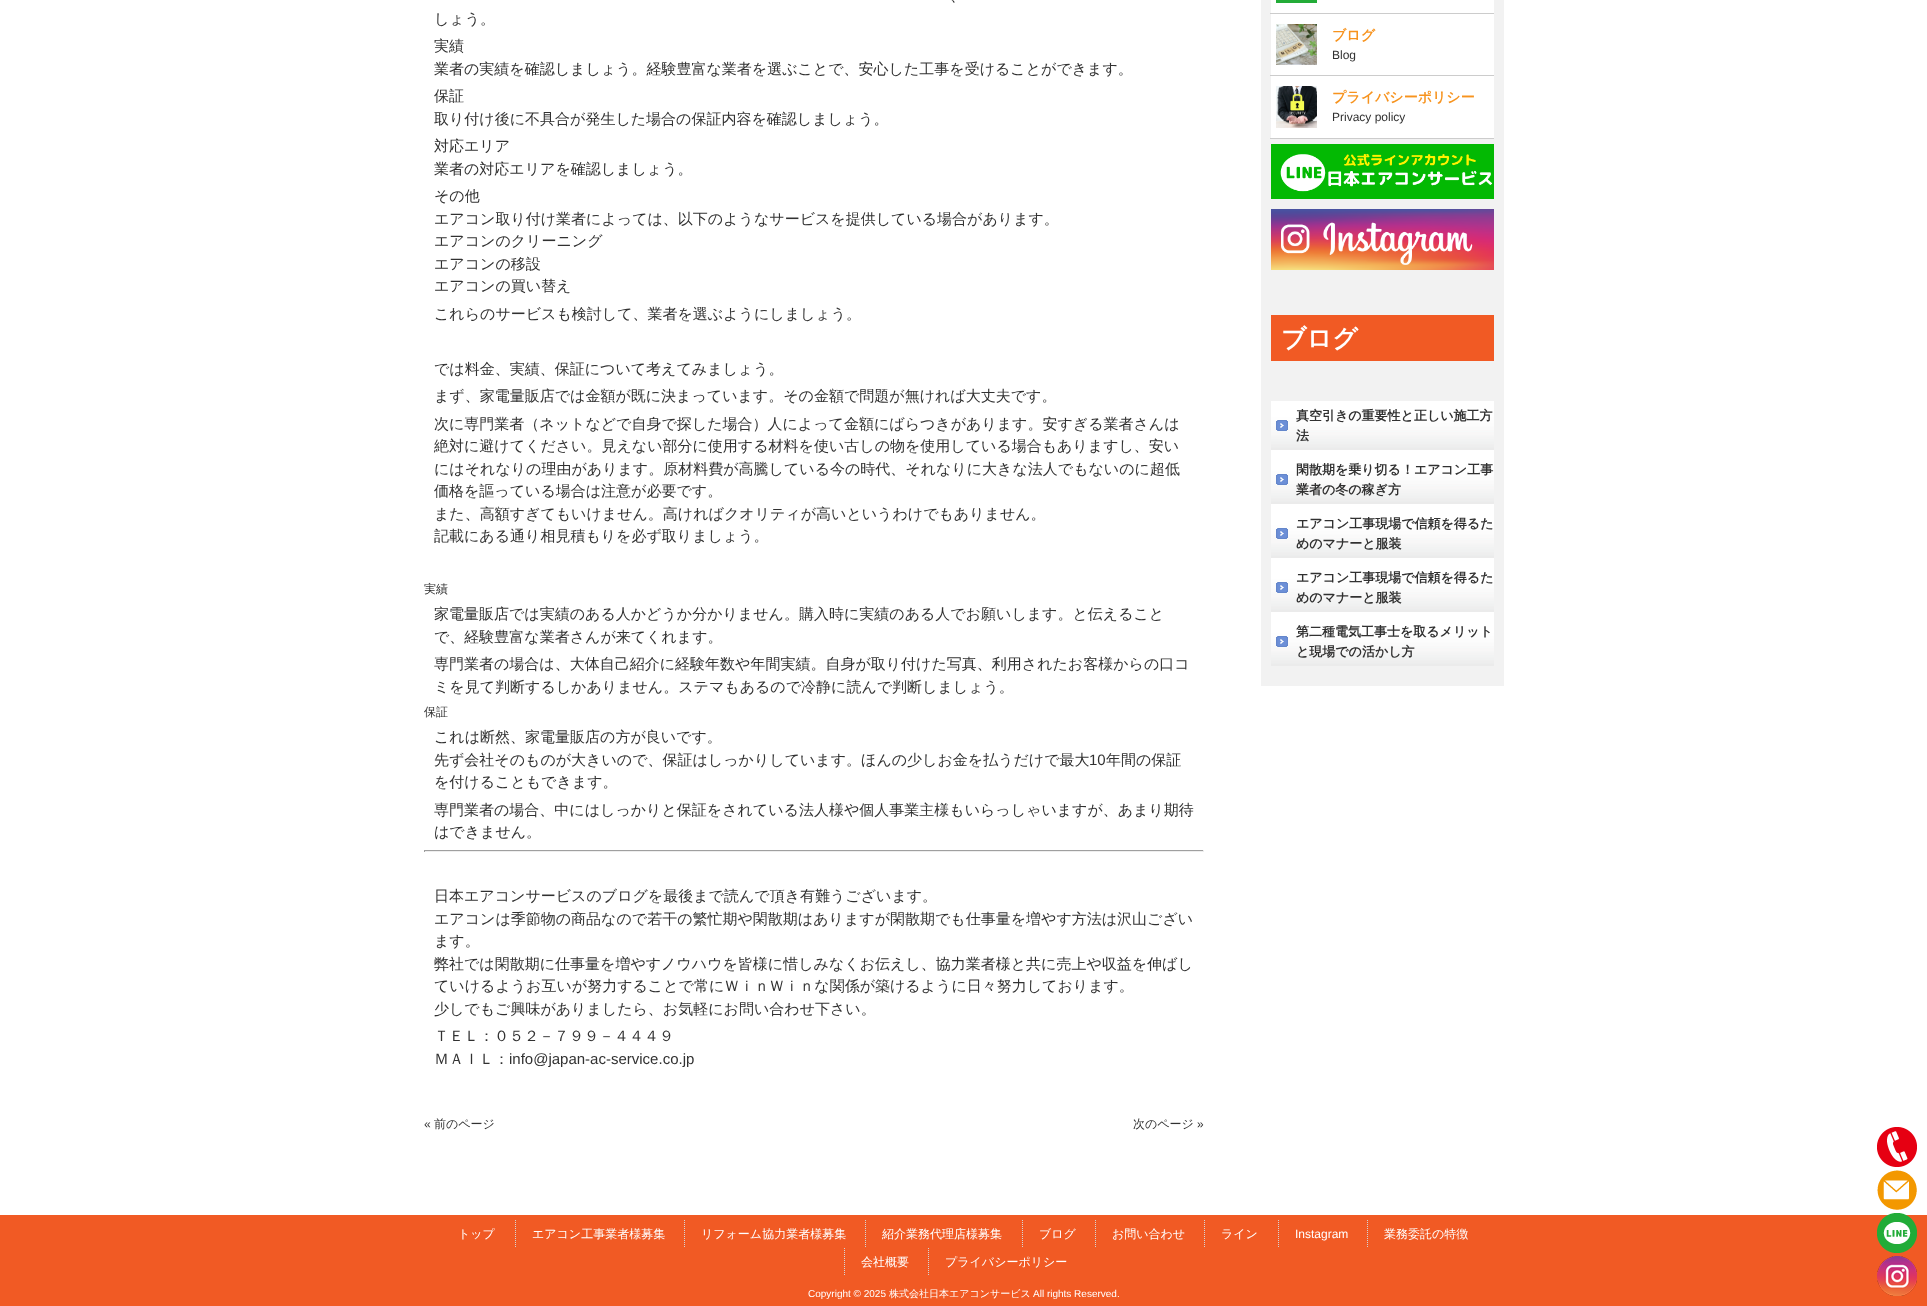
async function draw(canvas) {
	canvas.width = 1927;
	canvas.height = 1306;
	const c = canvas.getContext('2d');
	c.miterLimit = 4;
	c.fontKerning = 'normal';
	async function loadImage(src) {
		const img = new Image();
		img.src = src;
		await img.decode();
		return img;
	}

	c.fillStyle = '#fff';
	c.fillRect(0, 0, 1927, 1306);
	c.font = '500 15px WenQuanYi Zen Hei';
	c.fillStyle = '#313131';
	for (const [text, x, y] of [
		['、', 950, 1],
		['しょう。', 434, 24],
		['実績', 434, 51],
		['業者の実績を確認しましょう。経験豊富な業者を選ぶことで、安心した工事を受けることができます。', 434, 74],
		['保証', 434, 101],
		['取り付け後に不具合が発生した場合の保証内容を確認しましょう。', 434, 124],
		['対応エリア', 434, 151],
		['業者の対応エリアを確認しましょう。', 434, 174],
		['その他', 434, 201],
		['エアコン取り付け業者によっては、以下のようなサービスを提供している場合があります。', 434, 224],
		['エアコンのクリーニング', 434, 246],
		['エアコンの移設', 434, 269],
		['エアコンの買い替え', 434, 291],
		['これらのサービスも検討して、業者を選ぶようにしましょう。', 434, 319],
		['では料金、実績、保証について考えてみましょう。', 434, 374],
		['まず、家電量販店では金額が既に決まっています。その金額で問題が無ければ大丈夫です。', 434, 401],
		['次に専門業者（ネットなどで自身で探した場合）人によって金額にばらつきがあります。安すぎる業者さんは', 434, 429],
		['絶対に避けてください。見えない部分に使用する材料を使い古しの物を使用している場合もありますし、安い', 434, 451],
		['にはそれなりの理由があります。原材料費が高騰している今の時代、それなりに大きな法人でもないのに超低', 434, 474],
		['価格を謳っている場合は注意が必要です。', 434, 496],
		['また、高額すぎてもいけません。高ければクオリティが高いというわけでもありません。', 434, 519],
		['記載にある通り相見積もりを必ず取りましょう。', 434, 541],
	]) {
		c.fillText(text, x, y);
	}
	c.font = '500 12px WenQuanYi Zen Hei';
	c.fillText('実績', 424, 593);
	c.font = '500 15px WenQuanYi Zen Hei';
	for (const [text, x, y] of [
		['家電量販店では実績のある人かどうか分かりません。購入時に実績のある人でお願いします。と伝えること', 434, 619],
		['で、経験豊富な業者さんが来てくれます。', 434, 642],
		['専門業者の場合は、大体自己紹介に経験年数や年間実績。自身が取り付けた写真、利用されたお客様からの口コ', 434, 669],
		['ミを見て判断するしかありません。ステマもあるので冷静に読んで判断しましょう。', 434, 692],
	]) {
		c.fillText(text, x, y);
	}
	c.font = '500 12px WenQuanYi Zen Hei';
	c.fillText('保証', 424, 716);
	c.font = '500 15px WenQuanYi Zen Hei';
	c.fillText('これは断然、家電量販店の方が良いです。', 434, 742);
	c.fillText('先ず会社そのものが大きいので、保証はしっかりしています。ほんの少しお金を払うだけで最大', 434, 765);
	c.font = '15px Liberation Sans';
	c.fillText('10', 1089, 765);
	c.font = '500 15px WenQuanYi Zen Hei';
	for (const [text, x, y] of [
		['年間の保証', 1106, 765],
		['を付けることもできます。', 434, 787],
		['専門業者の場合、中にはしっかりと保証をされている法人様や個人事業主様もいらっしゃいますが、あまり期待', 434, 815],
		['はできません。', 434, 837],
	]) {
		c.fillText(text, x, y);
	}
	for (const [x, y, w, h, color] of [
		[424, 850, 780, 1, '#9f9f9f'],
		[1203, 850, 1, 2, '#eee'],
		[424, 851, 780, 1, '#eee'],
		[424, 850, 1, 2, '#9f9f9f'],
	]) {
		c.fillStyle = color;
		c.fillRect(x, y, w, h);
	}
	c.fillStyle = '#313131';
	for (const [text, x, y] of [
		['日本エアコンサービスのブログを最後まで読んで頂き有難うございます。', 434, 901],
		['エアコンは季節物の商品なので若干の繁忙期や閑散期はありますが閑散期でも仕事量を増やす方法は沢山ござい', 434, 924],
		['ます。', 434, 946],
		['弊社では閑散期に仕事量を増やすノウハウを皆様に惜しみなくお伝えし、協力業者様と共に売上や収益を伸ばし', 434, 969],
		['ていけるようお互いが努力することで常にＷｉｎＷｉｎな関係が築けるように日々努力しております。', 434, 991],
		['少しでもご興味がありましたら、お気軽にお問い合わせ下さい。', 434, 1014],
		['ＴＥＬ：０５２－７９９－４４４９', 434, 1041],
		['ＭＡＩＬ：', 434, 1064],
	]) {
		c.fillText(text, x, y);
	}
	c.font = '15px Liberation Sans';
	c.fillText('info@japan-ac-service.co.jp', 509, 1064);
	c.font = '12px Liberation Sans';
	c.fillText('«', 424, 1128);
	c.font = '500 12px WenQuanYi Zen Hei';
	c.fillText('前のページ', 434, 1128);
	c.fillText('次のページ', 1133, 1128);
	c.font = '12px Liberation Sans';
	c.fillText('»', 1197, 1128);
	for (const [x, y, w, h, color] of [
		[1261, 0, 243, 686, '#f2f2f2'],
		[1271, 0, 223, 138, '#fff'],
		[1276, 0, 41, 3, '#23ac38'],
		[1270, 13, 224, 1, '#ccc'],
	]) {
		c.fillStyle = color;
		c.fillRect(x, y, w, h);
	}
	c.drawImage(await loadImage('img1.png'), 1276, 24, 41, 41);
	c.fillRect(1270, 75, 224, 1);
	c.font = 'bold 14px WenQuanYi Zen Hei';
	c.fillStyle = '#f7931e';
	c.fillText('ブログ', 1332, 40);
	c.font = '12px Liberation Sans';
	c.fillStyle = '#313131';
	c.fillText('Blog', 1332, 59);
	c.drawImage(await loadImage('img2.png'), 1276, 86, 41, 42);
	c.fillStyle = '#ccc';
	c.fillRect(1270, 138, 224, 1);
	c.font = 'bold 14px WenQuanYi Zen Hei';
	c.fillStyle = '#f7931e';
	c.fillText('プライバシーポリシー', 1332, 102);
	c.font = '12px Liberation Sans';
	c.fillStyle = '#313131';
	c.fillText('Privacy policy', 1332, 121);
	c.drawImage(await loadImage('img3.png'), 1271, 144, 223, 55);
	c.drawImage(await loadImage('img4.png'), 1271, 209, 223, 61);
	c.fillStyle = '#f15a24';
	c.fillRect(1271, 315, 223, 46);
	c.font = 'bold 25px WenQuanYi Zen Hei';
	c.fillStyle = '#fff';
	c.fillText('ブログ', 1281, 347);
	c.fillRect(1271, 450, 223, 167);
	c.drawImage(await loadImage('img5.png'), 1271, 401, 223, 49);
	c.drawImage(await loadImage('img6.png'), 1276, 420, 12, 11);
	c.font = 'bold 13px WenQuanYi Zen Hei';
	c.fillStyle = '#313131';
	c.fillText('真空引きの重要性と正しい施工方', 1296, 420);
	c.fillText('法', 1296, 440);
	c.drawImage(await loadImage('img5.png'), 1271, 455, 223, 49);
	c.drawImage(await loadImage('img6.png'), 1276, 474, 12, 11);
	c.fillText('閑散期を乗り切る！エアコン工事', 1296, 474);
	c.fillText('業者の冬の稼ぎ方', 1296, 494);
	c.drawImage(await loadImage('img5.png'), 1271, 509, 223, 49);
	c.drawImage(await loadImage('img6.png'), 1276, 528, 12, 11);
	c.fillText('エアコン工事現場で信頼を得るた', 1296, 528);
	c.fillText('めのマナーと服装', 1296, 548);
	c.drawImage(await loadImage('img5.png'), 1271, 563, 223, 49);
	c.drawImage(await loadImage('img6.png'), 1276, 582, 12, 11);
	c.fillText('エアコン工事現場で信頼を得るた', 1296, 582);
	c.fillText('めのマナーと服装', 1296, 602);
	c.drawImage(await loadImage('img5.png'), 1271, 617, 223, 49);
	c.drawImage(await loadImage('img6.png'), 1276, 636, 12, 11);
	c.fillText('第二種電気工事士を取るメリット', 1296, 636);
	c.fillText('と現場での活かし方', 1296, 656);
	c.fillStyle = '#f15a24';
	c.fillRect(0, 1215, 1927, 91);
	c.font = '500 12px WenQuanYi Zen Hei';
	c.fillStyle = '#fff';
	c.fillText('トップ', 458, 1238);
	c.beginPath();
	c.moveTo(515.5, 1220);
	c.lineTo(515.5, 1248);
	c.strokeStyle = '#d5d5d5';
	c.setLineDash([1, 1]);
	c.stroke();
	c.fillText('エアコン工事業者様募集', 532, 1238);
	c.beginPath();
	c.moveTo(684.5, 1220);
	c.lineTo(684.5, 1248);
	c.stroke();
	c.fillText('リフォーム協力業者様募集', 701, 1238);
	c.beginPath();
	c.moveTo(865.5, 1220);
	c.lineTo(865.5, 1248);
	c.stroke();
	c.fillText('紹介業務代理店様募集', 882, 1238);
	c.beginPath();
	c.moveTo(1022.5, 1220);
	c.lineTo(1022.5, 1248);
	c.stroke();
	c.fillText('ブログ', 1039, 1238);
	c.beginPath();
	c.moveTo(1095.5, 1220);
	c.lineTo(1095.5, 1248);
	c.stroke();
	c.fillText('お問い合わせ', 1112, 1238);
	c.beginPath();
	c.moveTo(1204.5, 1220);
	c.lineTo(1204.5, 1248);
	c.stroke();
	c.fillText('ライン', 1221, 1238);
	c.beginPath();
	c.moveTo(1278.5, 1220);
	c.lineTo(1278.5, 1248);
	c.stroke();
	c.font = '12px Liberation Sans';
	c.fillText('Instagram', 1295, 1238);
	c.beginPath();
	c.moveTo(1367.5, 1220);
	c.lineTo(1367.5, 1248);
	c.stroke();
	c.font = '500 12px WenQuanYi Zen Hei';
	c.fillText('業務委託の特徴', 1384, 1238);
	c.beginPath();
	c.moveTo(844.5, 1248);
	c.lineTo(844.5, 1276);
	c.stroke();
	c.fillText('会社概要', 861, 1266);
	c.beginPath();
	c.moveTo(928.5, 1248);
	c.lineTo(928.5, 1276);
	c.stroke();
	c.fillText('プライバシーポリシー', 945, 1266);
	c.drawImage(await loadImage('img7.png'), 1877, 1127, 40, 40);
	c.drawImage(await loadImage('img8.png'), 1877, 1170, 40, 40);
	c.drawImage(await loadImage('img9.png'), 1877, 1213, 40, 40);
	c.drawImage(await loadImage('img10.png'), 1877, 1256, 40, 40);
	c.font = '10px Liberation Sans';
	c.fillText('Copyright © 2025', 808, 1297);
	c.font = '500 10px WenQuanYi Zen Hei';
	c.fillText('株式会社日本エアコンサービス', 889, 1297);
	c.font = '10px Liberation Sans';
	c.fillText('All rights Reserved.', 1033, 1297);
}

draw(document.querySelector('canvas'));
